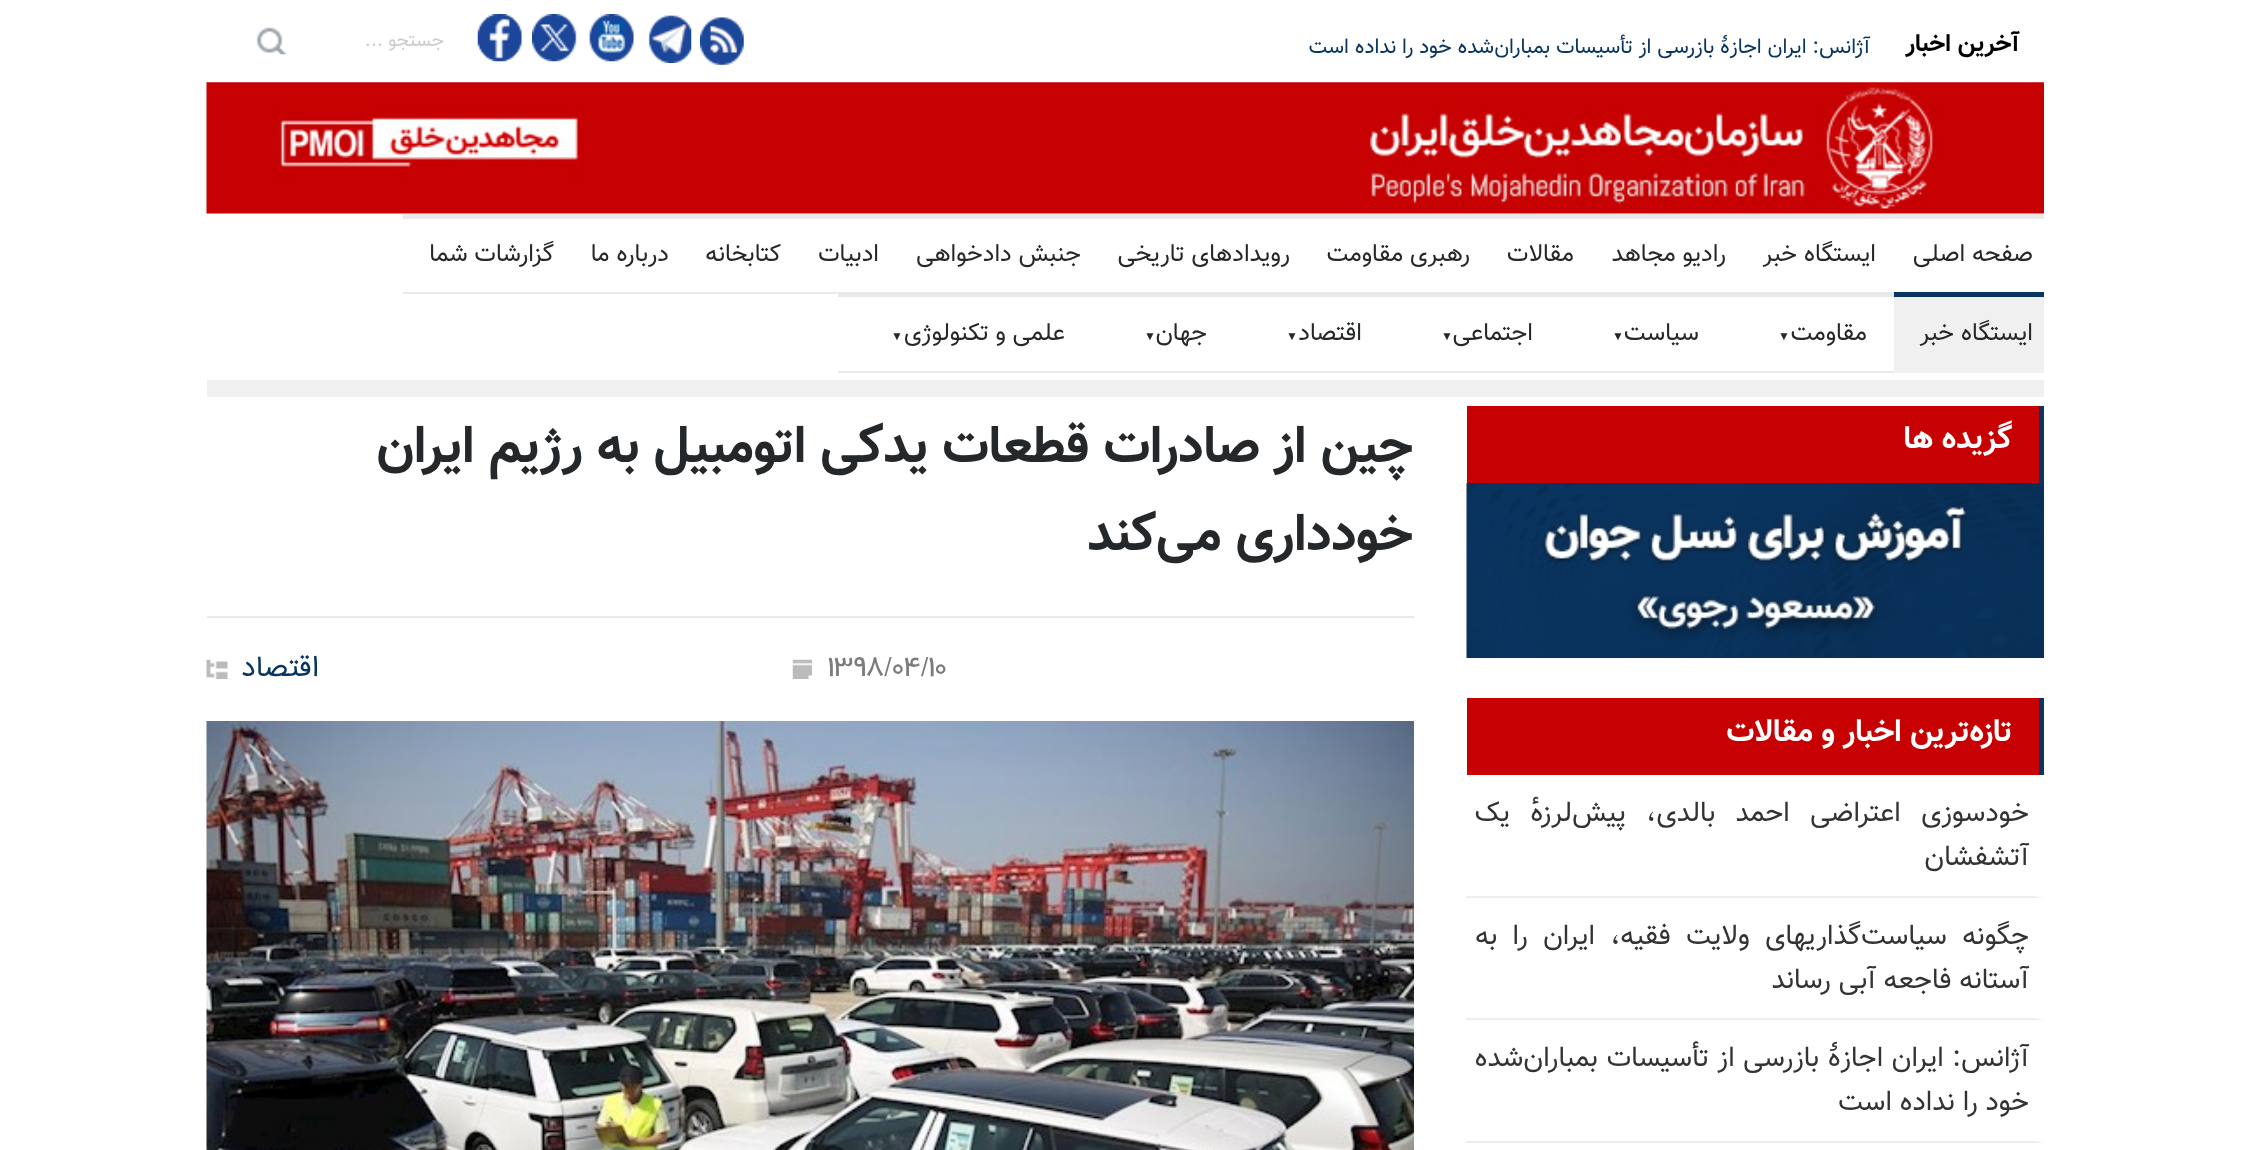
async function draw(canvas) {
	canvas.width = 2248;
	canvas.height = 1150;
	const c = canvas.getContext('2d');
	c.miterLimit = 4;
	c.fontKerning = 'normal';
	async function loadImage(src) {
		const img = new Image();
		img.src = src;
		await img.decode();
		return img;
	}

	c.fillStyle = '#fff';
	c.fillRect(0, 0, 2248, 1150);
	c.direction = 'rtl';
	c.font = 'bold 24.5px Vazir';
	c.fillStyle = '#000';
	c.fillText('آخرین اخبار', 2019, 51);
	c.font = '21px Vazir';
	c.fillStyle = '#093562';
	c.fillText('آژانس: ایران اجازهٔ بازرسی از تأسیسات بمباران‌شده خود را نداده است', 1870, 53);
	c.drawImage(await loadImage('img1.png'), 700, 17, 44, 48);
	c.drawImage(await loadImage('img2.png'), 648, 15, 44, 48);
	c.drawImage(await loadImage('img3.png'), 589, 14, 45, 48);
	c.drawImage(await loadImage('img4.png'), 532, 14, 45, 48);
	c.drawImage(await loadImage('img5.png'), 477, 14, 45, 48);
	c.font = '19.25px Vazir';
	c.fillStyle = '#ccc';
	c.fillText('جستجو ...', 444, 46);
	c.drawImage(await loadImage('img6.png'), 256, 27, 30, 28);
	c.drawImage(await loadImage('img7.png'), 206, 82, 1838, 132);
	c.fillStyle = '#e9e9e9';
	c.fillRect(403, 214, 1641, 5);
	c.font = '24.5px Vazir';
	c.fillStyle = '#25282a';
	for (const [text, x, y] of [
		['صفحه اصلی', 2033, 261],
		['ایستگاه خبر', 1876, 261],
		['رادیو مجاهد', 1726, 261],
		['مقالات', 1574, 261],
		['رهبری مقاومت', 1470, 261],
		['رویدادهای تاریخی', 1290, 261],
		['جنبش دادخواهی', 1081, 261],
	]) {
		c.fillText(text, x, y);
	}
	c.fillStyle = '#e9e9e9';
	c.fillRect(403, 292, 435, 2);
	c.fillStyle = '#25282a';
	for (const [text, x, y] of [
		['ادبیات', 879, 261],
		['کتابخانه', 781, 261],
		['درباره ما', 669, 261],
		['گزارشات شما', 554, 261],
	]) {
		c.fillText(text, x, y);
	}
	c.fillStyle = '#f0f0f0';
	c.fillRect(1894, 297, 150, 76);
	c.fillStyle = '#093562';
	c.fillRect(1894, 292, 150, 5);
	c.fillStyle = '#25282a';
	c.fillText('ایستگاه خبر', 2033, 340);
	c.fillStyle = '#e9e9e9';
	c.fillRect(838, 292, 1056, 5);
	c.fillRect(838, 371, 1056, 2);
	c.fillStyle = '#25282a';
	c.fillText('مقاومت', 1867, 340);
	c.direction = 'ltr';
	c.font = '12px Liberation Serif';
	c.fillText('▼', 1778, 340);
	c.direction = 'rtl';
	c.font = '24.5px Vazir';
	c.fillText('سیاست', 1699, 340);
	c.direction = 'ltr';
	c.font = '12px Liberation Serif';
	c.fillText('▼', 1612, 340);
	c.direction = 'rtl';
	c.font = '24.5px Vazir';
	c.fillText('اجتماعی', 1533, 340);
	c.direction = 'ltr';
	c.font = '12px Liberation Serif';
	c.fillText('▼', 1441, 340);
	c.direction = 'rtl';
	c.font = '24.5px Vazir';
	c.fillText('اقتصاد', 1362, 340);
	c.direction = 'ltr';
	c.font = '12px Liberation Serif';
	c.fillText('▼', 1286, 340);
	c.direction = 'rtl';
	c.font = '24.5px Vazir';
	c.fillText('جهان', 1207, 340);
	c.direction = 'ltr';
	c.font = '12px Liberation Serif';
	c.fillText('▼', 1144, 340);
	c.direction = 'rtl';
	c.font = '24.5px Vazir';
	c.fillText('علمی و تکنولوژی', 1065, 340);
	c.direction = 'ltr';
	c.font = '12px Liberation Serif';
	c.fillText('▼', 891, 340);
	for (const [x, y, w, h, color] of [
		[207, 380, 1837, 17, '#f0f0f0'],
		[1467, 406, 572, 77, '#c70001'],
		[2039, 406, 5, 77, '#093562'],
	]) {
		c.fillStyle = color;
		c.fillRect(x, y, w, h);
	}
	c.direction = 'rtl';
	c.font = 'bold 31.5px Vazir';
	c.fillStyle = '#fff';
	c.fillText('گزیده ها', 2012, 448);
	c.drawImage(await loadImage('img8.png'), 1466, 483, 578, 175);
	c.fillStyle = '#c70001';
	c.fillRect(1467, 698, 572, 77);
	c.fillStyle = '#093562';
	c.fillRect(2039, 698, 5, 77);
	c.fillStyle = '#fff';
	c.fillText('تازه‌ترین اخبار و مقالات', 2012, 741);
	c.fillStyle = '#eee';
	c.beginPath();
	c.moveTo(2044, 898);
	c.lineTo(1466, 898);
	c.lineTo(1466, 896);
	c.lineTo(2035, 896);
	c.closePath();
	c.fill();
	c.wordSpacing = '12.5px';
	c.font = '28px Vazir';
	c.fillStyle = '#333';
	c.fillText('خودسوزی اعتراضی احمد بالدی، پیش‌لرزه‌ٔ یک', 2029, 821);
	c.wordSpacing = '0px';
	c.fillText('آتشفشان', 2029, 865);
	c.fillStyle = '#eee';
	c.beginPath();
	c.moveTo(2044, 1020);
	c.lineTo(1466, 1020);
	c.lineTo(1466, 1018);
	c.lineTo(2035, 1018);
	c.closePath();
	c.fill();
	c.wordSpacing = '7.5px';
	c.fillStyle = '#333';
	c.fillText('چگونه سیاست‌گذاریهای ولایت فقیه، ایران را به', 2029, 944);
	c.wordSpacing = '0px';
	c.fillText('آستانه فاجعه آبی رساند', 2029, 988);
	c.fillStyle = '#eee';
	c.beginPath();
	c.moveTo(2044, 1143);
	c.lineTo(1466, 1143);
	c.lineTo(1466, 1141);
	c.lineTo(2035, 1141);
	c.closePath();
	c.fill();
	c.wordSpacing = '0.75px';
	c.fillStyle = '#333';
	c.fillText('آژانس: ایران اجازهٔ بازرسی از تأسیسات بمباران‌شده', 2029, 1066);
	c.wordSpacing = '0px';
	c.fillText('خود را نداده است', 2029, 1110);
	c.font = 'bold 52.5px Vazir';
	c.fillStyle = '#25282a';
	c.fillText('چین از صادرات قطعات یدکی اتومبیل به رژیم ایران', 1413, 462);
	c.fillText('خودداری می‌کند', 1413, 550);
	c.fillStyle = '#e9e9e9';
	c.fillRect(207, 616, 1207, 2);
	c.drawImage(await loadImage('img9.png'), 792, 659, 20, 20);
	c.direction = 'ltr';
	c.font = '26.25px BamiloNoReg';
	c.fillStyle = '#7c7c7c';
	c.fillText('1398/04/10', 828, 676);
	c.drawImage(await loadImage('img10.png'), 206, 659, 22, 20);
	c.direction = 'rtl';
	c.fillStyle = '#093562';
	c.fillText('اقتصاد', 318, 676);
	c.drawImage(await loadImage('img11.png'), 206, 721, 1208, 429);
}

draw(document.querySelector('canvas'));
